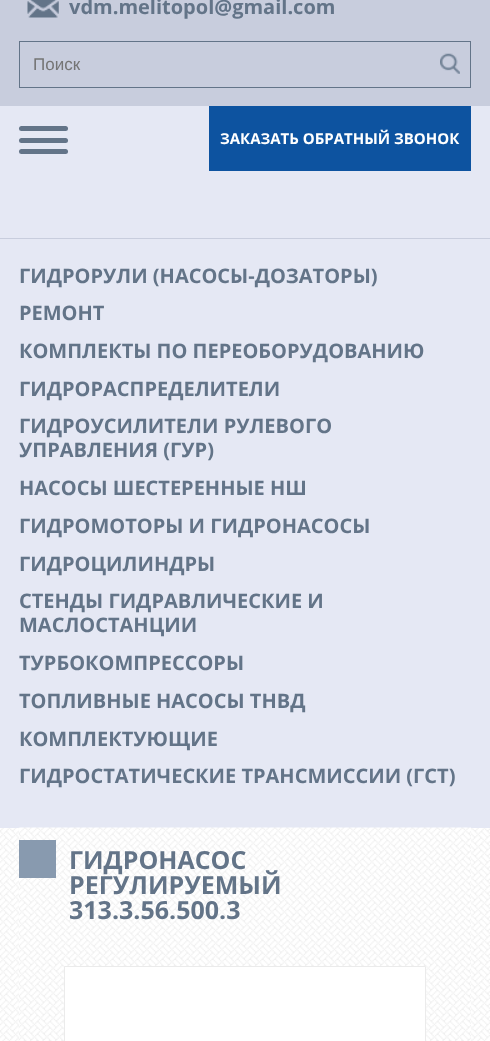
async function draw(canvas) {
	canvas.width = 490;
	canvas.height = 1041;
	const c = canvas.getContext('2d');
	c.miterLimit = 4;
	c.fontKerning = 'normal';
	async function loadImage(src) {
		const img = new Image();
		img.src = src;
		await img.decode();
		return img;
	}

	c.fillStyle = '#fff';
	c.fillRect(0, 0, 490, 1041);
	c.fillStyle = '#c8cddd';
	c.fillRect(0, 0, 490, 106);
	c.drawImage(await loadImage('img1.png'), 27, 0, 32, 18);
	c.font = 'bold 20px Open Sans';
	c.fillStyle = '#637488';
	c.fillText('vdm.melitopol@gmail.com', 69, 14);
	c.strokeStyle = '#637488';
	c.strokeRect(19.5, 41.5, 451, 46);
	c.font = '17px Liberation Sans';
	c.fillStyle = '#757575';
	c.fillText('Поиск', 33, 70);
	c.drawImage(await loadImage('img2.png'), 440, 53, 20, 21);
	c.fillStyle = '#e5e8f4';
	c.fillRect(0, 106, 490, 132);
	c.fillStyle = '#0d53a0';
	c.fillRect(209, 106, 262, 65);
	c.font = 'bold 15px Open Sans';
	c.fillStyle = '#fff';
	c.fillText('ЗАКАЗАТЬ ОБРАТНЫЙ ЗВОНОК', 220, 144);
	c.fillStyle = '#637488';
	c.beginPath();
	c.roundRect(19, 126, 49, 5, 2.5);
	c.fill();
	c.beginPath();
	c.roundRect(19, 138, 49, 5, 2.5);
	c.fill();
	c.beginPath();
	c.roundRect(19, 149, 49, 5, 2.5);
	c.fill();
	c.drawImage(await loadImage('img3.png'), 0, 828, 490, 213);
	c.fillStyle = '#e5e8f4';
	c.fillRect(0, 239, 490, 589);
	c.fillStyle = '#c8cddd';
	c.fillRect(0, 238, 490, 1);
	c.font = 'bold 20px Open Sans';
	c.fillStyle = '#637488';
	for (const [text, x, y] of [
		['ГИДРОРУЛИ (НАСОСЫ-ДОЗАТОРЫ)', 19, 283],
		['РЕМОНТ', 19, 320],
		['КОМПЛЕКТЫ ПО ПЕРЕОБОРУДОВАНИЮ', 19, 358],
		['ГИДРОРАСПРЕДЕЛИТЕЛИ', 19, 396],
		['ГИДРОУСИЛИТЕЛИ РУЛЕВОГО', 19, 433],
		['УПРАВЛЕНИЯ (ГУР)', 19, 457],
		['НАСОСЫ ШЕСТЕРЕННЫЕ НШ', 19, 495],
		['ГИДРОМОТОРЫ И ГИДРОНАСОСЫ', 19, 533],
		['ГИДРОЦИЛИНДРЫ', 19, 571],
		['СТЕНДЫ ГИДРАВЛИЧЕСКИЕ И', 19, 608],
		['МАСЛОСТАНЦИИ', 19, 632],
		['ТУРБОКОМПРЕССОРЫ', 19, 670],
		['ТОПЛИВНЫЕ НАСОСЫ ТНВД', 19, 708],
		['КОМПЛЕКТУЮЩИЕ', 19, 746],
		['ГИДРОСТАТИЧЕСКИЕ ТРАНСМИССИИ (ГСТ)', 19, 783],
	]) {
		c.fillText(text, x, y);
	}
	c.drawImage(await loadImage('img4.png'), 18, 827, 453, 214);
	c.fillStyle = '#889aaf';
	c.fillRect(19, 840, 37, 38);
	c.font = 'bold 25px Open Sans';
	c.fillStyle = '#637488';
	for (const [text, x, y] of [
		['ГИДРОНАСОС', 69, 869],
		['РЕГУЛИРУЕМЫЙ', 69, 894],
		['313.3.56.500.3', 69, 919],
	]) {
		c.fillText(text, x, y);
	}
	c.fillStyle = '#fff';
	c.beginPath();
	c.rect(64.5, 966.5, 361, 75);
	c.fill();
	c.strokeStyle = '#ebebeb';
	c.stroke();
}

draw(document.querySelector('canvas'));
